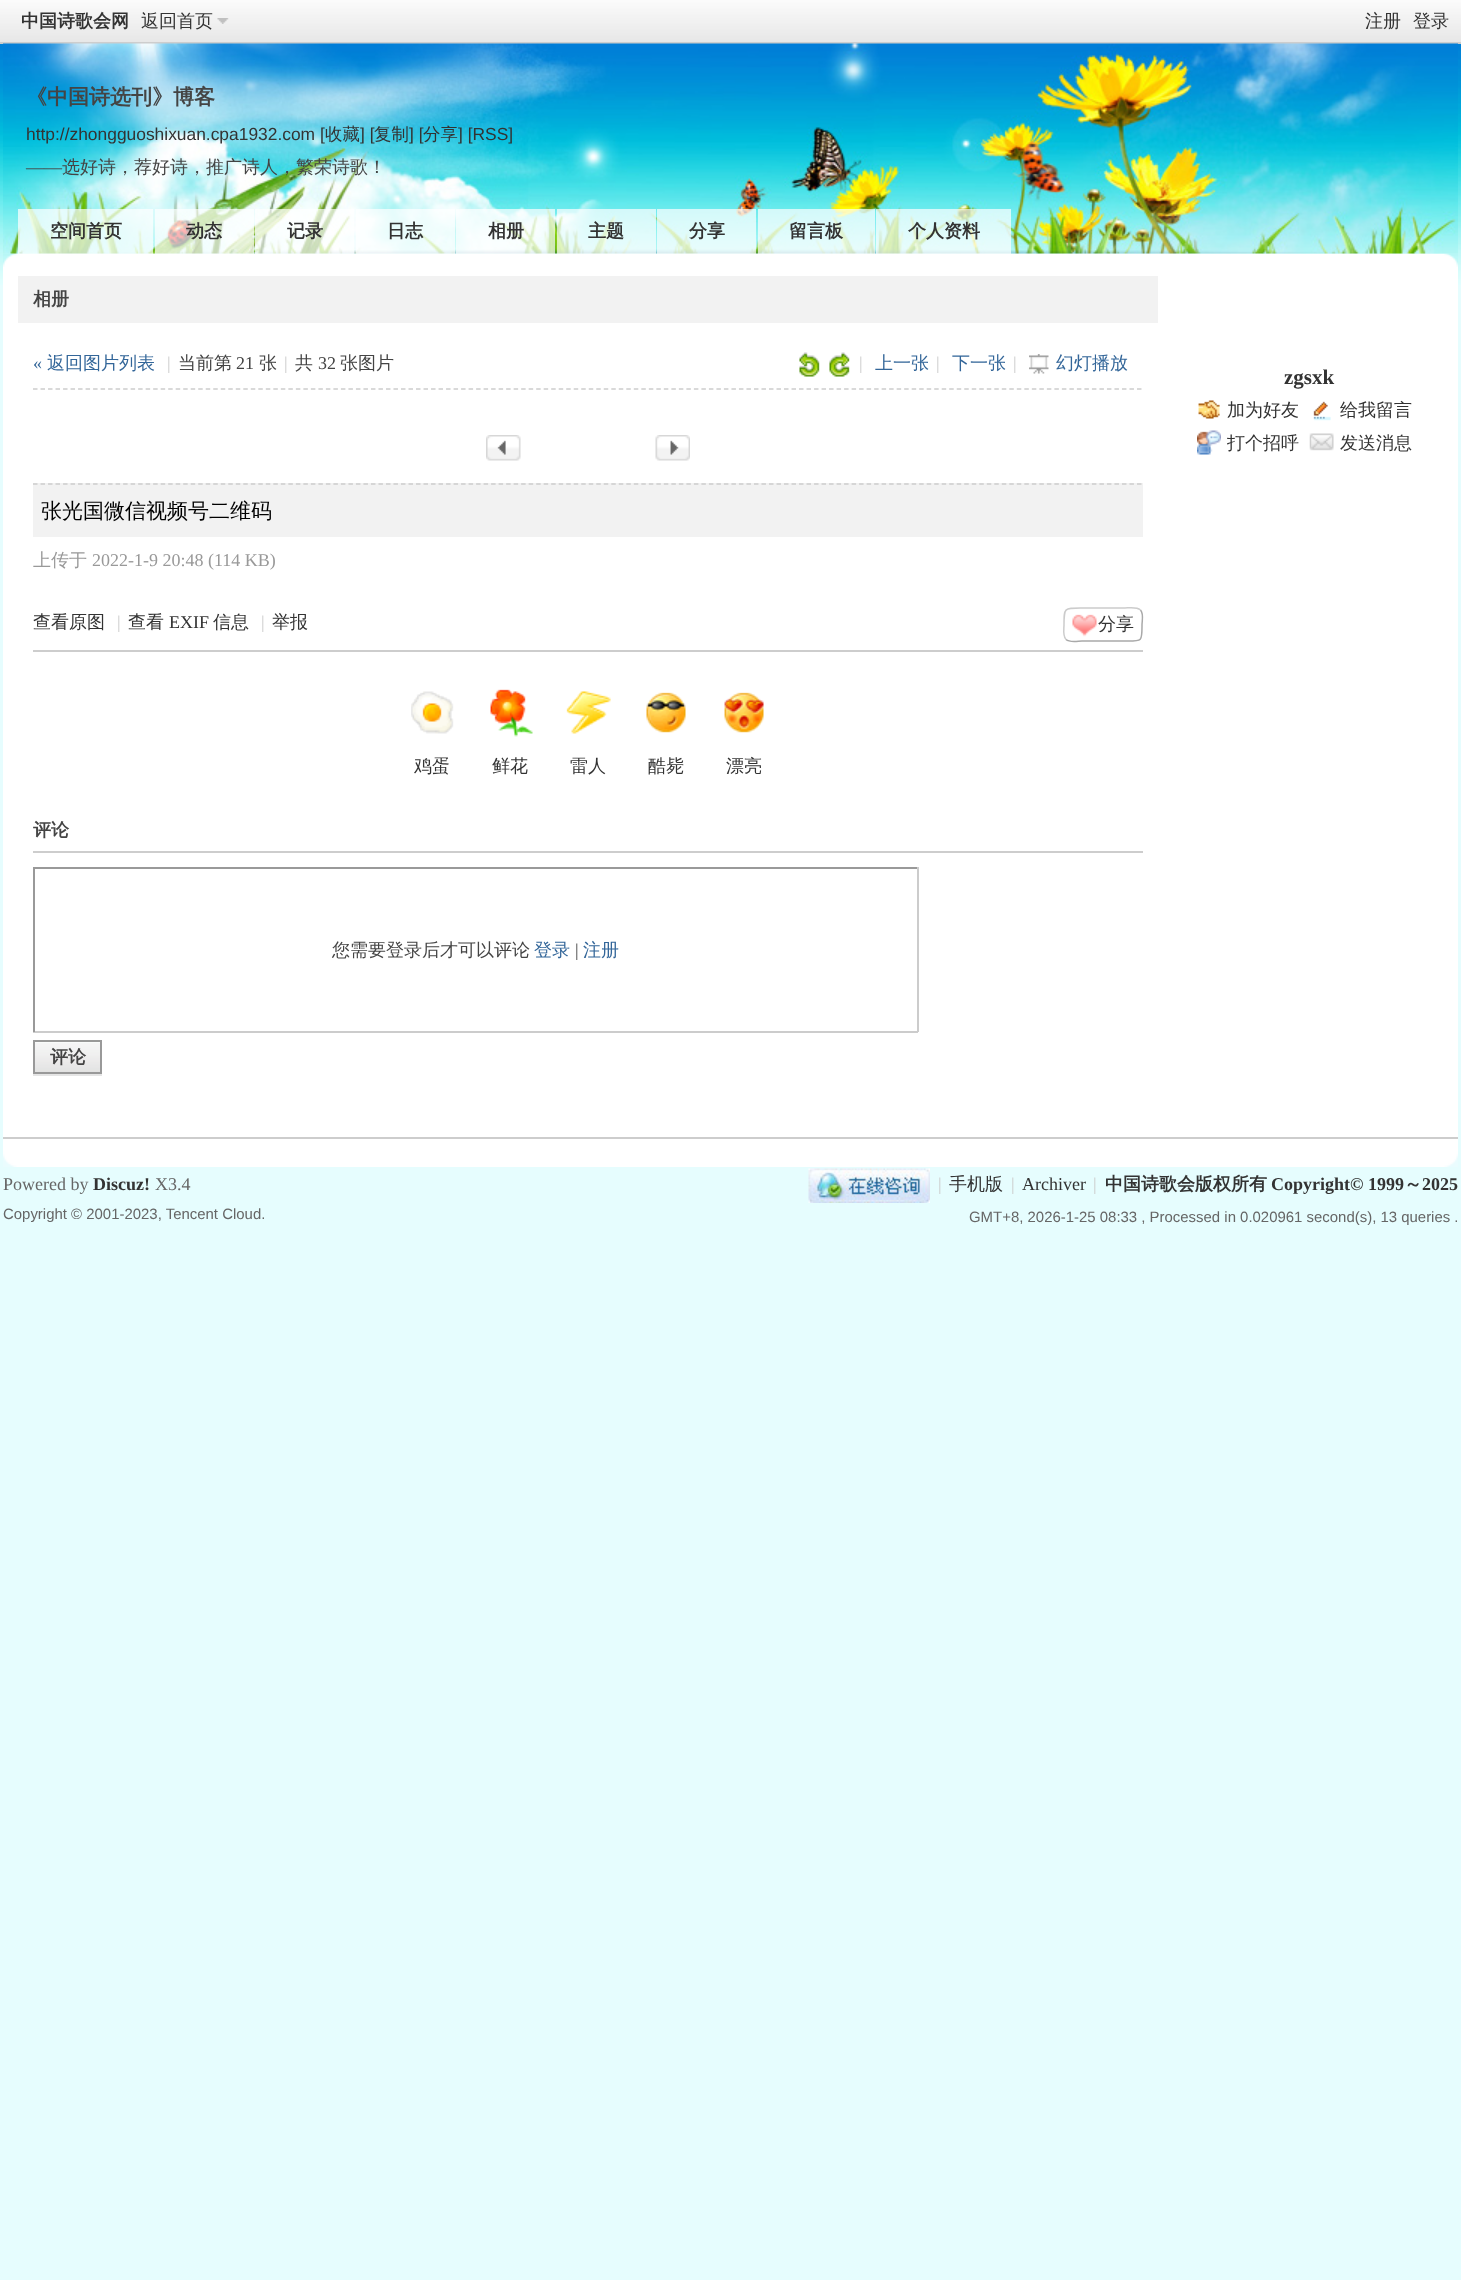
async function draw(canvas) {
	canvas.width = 1461;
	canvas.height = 2280;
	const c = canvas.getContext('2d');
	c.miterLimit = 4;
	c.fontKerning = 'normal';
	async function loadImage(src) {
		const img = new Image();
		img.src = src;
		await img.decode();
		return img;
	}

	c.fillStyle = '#e6fdfe';
	c.fillRect(0, 0, 1461, 2280);
	c.drawImage(await loadImage('img1.png'), 0, 44, 1461, 241);
	c.drawImage(await loadImage('img2.png'), 0, 0, 1461, 42);
	c.fillStyle = '#cdcdcd';
	c.fillRect(0, 42, 1461, 2);
	c.font = 'bold 18px WenQuanYi Zen Hei';
	c.fillStyle = '#333';
	c.fillText('中国诗歌会网', 21, 27);
	c.drawImage(await loadImage('img3.png'), 217, 18, 12, 6);
	c.font = '500 18px WenQuanYi Zen Hei';
	for (const [text, x, y] of [
		['返回首页', 141, 27],
		['注册', 1365, 27],
		['登录', 1413, 27],
	]) {
		c.fillText(text, x, y);
	}
	c.drawImage(await loadImage('img5.png'), 3, 253, 1455, 14);
	c.drawImage(await loadImage('img4.png'), 3, 43, 1455, 211);
	c.font = 'bold 21px WenQuanYi Zen Hei';
	c.fillStyle = '#444';
	c.fillText('《中国诗选刊》博客', 26, 104);
	c.font = '17.4px Liberation Sans';
	c.fillStyle = '#333';
	c.fillText('http://zhongguoshixuan.cpa1932.com [', 26, 140);
	c.font = '500 17.4px WenQuanYi Zen Hei';
	c.fillText('收藏', 325, 140);
	c.font = '17.4px Liberation Sans';
	c.fillText('] [', 360, 140);
	c.font = '500 17.4px WenQuanYi Zen Hei';
	c.fillText('复制', 374, 140);
	c.font = '17.4px Liberation Sans';
	c.fillText('] [', 409, 140);
	c.font = '500 17.4px WenQuanYi Zen Hei';
	c.fillText('分享', 423, 140);
	c.font = '17.4px Liberation Sans';
	c.fillText('] [RSS]', 458, 140);
	c.font = '18px Liberation Serif';
	c.fillStyle = '#444';
	c.fillText('——', 26, 173);
	c.font = '500 18px WenQuanYi Zen Hei';
	c.fillText('选好诗，荐好诗，推广诗人，繁荣诗歌！', 62, 173);
	c.fillStyle = '#ffffffb3';
	c.fillRect(18, 209, 135, 45);
	c.font = 'bold 18px WenQuanYi Zen Hei';
	c.fillStyle = '#333';
	c.fillText('空间首页', 50, 237);
	c.fillStyle = '#ffffffb3';
	c.fillRect(155, 209, 99, 45);
	c.fillStyle = '#333';
	c.fillText('动态', 186, 237);
	c.fillStyle = '#ffffffb3';
	c.fillRect(255, 209, 99, 45);
	c.fillStyle = '#333';
	c.fillText('记录', 287, 237);
	c.fillStyle = '#ffffffb3';
	c.fillRect(356, 209, 99, 45);
	c.fillStyle = '#333';
	c.fillText('日志', 387, 237);
	c.fillStyle = '#ffffffb3';
	c.fillRect(456, 209, 99, 45);
	c.fillStyle = '#333';
	c.fillText('相册', 488, 237);
	c.fillStyle = '#ffffffb3';
	c.fillRect(557, 209, 99, 45);
	c.fillStyle = '#333';
	c.fillText('主题', 588, 237);
	c.fillStyle = '#ffffffb3';
	c.fillRect(657, 209, 99, 45);
	c.fillStyle = '#333';
	c.fillText('分享', 689, 237);
	c.fillStyle = '#ffffffb3';
	c.fillRect(758, 209, 117, 45);
	c.fillStyle = '#333';
	c.fillText('留言板', 789, 237);
	c.fillStyle = '#ffffffb3';
	c.fillRect(876, 209, 135, 45);
	c.fillStyle = '#333';
	c.fillText('个人资料', 908, 237);
	c.fillStyle = '#fff';
	c.fillRect(3, 267, 1455, 870);
	c.fillStyle = '#f2f2f2';
	c.fillRect(18, 276, 1140, 47);
	c.fillStyle = '#444';
	c.fillText('相册', 33, 305);
	c.beginPath();
	c.moveTo(33, 389);
	c.lineTo(1143, 389);
	c.strokeStyle = '#cdcdcd';
	c.lineWidth = 1.5;
	c.setLineDash([4.5, 3.01]);
	c.stroke();
	c.font = '18px Liberation Serif';
	c.fillStyle = '#369';
	c.fillText('«', 33, 369);
	c.font = '500 18px WenQuanYi Zen Hei';
	c.fillText('返回图片列表', 47, 369);
	c.font = '18px Liberation Serif';
	c.fillStyle = '#ccc';
	c.fillText('|', 167, 369);
	c.font = '500 18px WenQuanYi Zen Hei';
	c.fillStyle = '#444';
	c.fillText('当前第', 178, 369);
	c.font = '18px Liberation Serif';
	c.fillText('21', 236, 369);
	c.font = '500 18px WenQuanYi Zen Hei';
	c.fillText('张', 259, 369);
	c.font = '18px Liberation Serif';
	c.fillStyle = '#ccc';
	c.fillText('|', 284, 369);
	c.font = '500 18px WenQuanYi Zen Hei';
	c.fillStyle = '#444';
	c.fillText('共', 295, 369);
	c.font = '18px Liberation Serif';
	c.fillText('32', 318, 369);
	c.font = '500 18px WenQuanYi Zen Hei';
	c.fillText('张图片', 340, 369);
	c.drawImage(await loadImage('img6.png'), 799, 352, 21, 25);
	c.drawImage(await loadImage('img7.png'), 829, 352, 21, 25);
	c.font = '18px Liberation Serif';
	c.fillStyle = '#ccc';
	c.fillText('|', 859, 369);
	c.font = '500 18px WenQuanYi Zen Hei';
	c.fillStyle = '#369';
	c.fillText('上一张', 875, 369);
	c.font = '18px Liberation Serif';
	c.fillStyle = '#ccc';
	c.fillText('|', 936, 369);
	c.font = '500 18px WenQuanYi Zen Hei';
	c.fillStyle = '#369';
	c.fillText('下一张', 952, 369);
	c.font = '18px Liberation Serif';
	c.fillStyle = '#ccc';
	c.fillText('|', 1013, 369);
	c.drawImage(await loadImage('img8.png'), 1029, 354, 20, 20);
	c.font = '500 18px WenQuanYi Zen Hei';
	c.fillStyle = '#369';
	c.fillText('幻灯播放', 1056, 369);
	c.drawImage(await loadImage('img9.png'), 486, 435, 35, 26);
	c.drawImage(await loadImage('img10.png'), 655, 435, 35, 26);
	c.fillStyle = '#cdcdcd';
	c.fillRect(33, 650, 1110, 2);
	c.fillStyle = '#f2f2f2';
	c.fillRect(33, 483, 1110, 54);
	c.beginPath();
	c.moveTo(33, 484);
	c.lineTo(1143, 484);
	c.stroke();
	c.font = '500 21px WenQuanYi Zen Hei';
	c.fillStyle = '#000';
	c.fillText('张光国微信视频号二维码', 41, 518);
	c.font = '500 18px WenQuanYi Zen Hei';
	c.fillStyle = '#999';
	c.fillText('上传于', 33, 566);
	c.font = '18px Liberation Serif';
	c.fillText('2022-1-9 20:48 (114 KB)', 92, 566);
	c.font = '500 18px WenQuanYi Zen Hei';
	c.fillStyle = '#333';
	c.fillText('查看原图', 33, 628);
	c.font = '18px Liberation Serif';
	c.fillStyle = '#ccc';
	c.fillText('|', 117, 628);
	c.font = '500 18px WenQuanYi Zen Hei';
	c.fillStyle = '#333';
	c.fillText('查看', 128, 628);
	c.font = '18px Liberation Serif';
	c.fillText('EXIF', 169, 628);
	c.font = '500 18px WenQuanYi Zen Hei';
	c.fillText('信息', 213, 628);
	c.font = '18px Liberation Serif';
	c.fillStyle = '#ccc';
	c.fillText('|', 261, 628);
	c.font = '500 18px WenQuanYi Zen Hei';
	c.fillStyle = '#333';
	c.fillText('举报', 272, 628);
	c.drawImage(await loadImage('img11.png'), 1072, 614, 25, 23);
	c.beginPath();
	c.moveTo(1140.5, 610);
	c.bezierCurveTo(1144, 614, 1142, 620.5, 1142, 625);
	c.bezierCurveTo(1142, 642, 1142.5, 641, 1125, 641);
	c.lineTo(1082, 641);
	c.bezierCurveTo(1078, 641, 1070, 643, 1066, 639.5);
	c.strokeStyle = '#a9a9a9';
	c.setLineDash([]);
	c.stroke();
	c.beginPath();
	c.moveTo(1066, 639.5);
	c.bezierCurveTo(1062.5, 635.5, 1064, 629, 1064, 625);
	c.bezierCurveTo(1064, 607.5, 1064, 608, 1082, 608);
	c.lineTo(1125, 608);
	c.bezierCurveTo(1128.5, 608, 1136.5, 606.5, 1140.5, 610);
	c.strokeStyle = '#ccc';
	c.stroke();
	c.fillText('分享', 1098, 630);
	c.drawImage(await loadImage('img12.png'), 411, 691, 43, 43);
	c.fillText('鸡蛋', 414, 772);
	c.drawImage(await loadImage('img13.png'), 490, 689, 43, 48);
	c.fillText('鲜花', 492, 772);
	c.drawImage(await loadImage('img14.png'), 566, 691, 45, 43);
	c.fillText('雷人', 570, 772);
	c.drawImage(await loadImage('img15.png'), 646, 692, 40, 41);
	c.fillText('酷毙', 648, 772);
	c.drawImage(await loadImage('img16.png'), 724, 692, 40, 41);
	c.fillText('漂亮', 726, 772);
	c.fillStyle = '#cdcdcd';
	c.fillRect(33, 851, 1110, 2);
	c.font = 'bold 18px WenQuanYi Zen Hei';
	c.fillStyle = '#444';
	c.fillText('评论', 33, 836);
	for (const [x, y, w, h, color] of [
		[33, 867, 885, 2, '#999'],
		[917, 867, 2, 165, '#ccc'],
		[33, 1031, 885, 2, '#ccc'],
		[33, 867, 2, 165, '#999'],
	]) {
		c.fillStyle = color;
		c.fillRect(x, y, w, h);
	}
	c.font = '500 18px WenQuanYi Zen Hei';
	c.fillStyle = '#444';
	c.fillText('您需要登录后才可以评论', 332, 956);
	c.fillStyle = '#369';
	c.fillText('登录', 534, 956);
	c.font = '18px Liberation Serif';
	c.fillStyle = '#444';
	c.fillText('|', 575, 956);
	c.font = '500 18px WenQuanYi Zen Hei';
	c.fillStyle = '#369';
	c.fillText('注册', 583, 956);
	c.fillStyle = '#e5e5e5';
	c.fillRect(33, 1074, 69, 2);
	c.drawImage(await loadImage('img17.png'), 35, 1042, 65, 30);
	c.strokeStyle = '#999';
	c.lineWidth = 2;
	c.strokeRect(34, 1041, 67, 32);
	c.font = 'bold 18px WenQuanYi Zen Hei';
	c.fillStyle = '#444';
	c.fillText('评论', 50, 1063);
	c.font = 'bold 21px Liberation Serif';
	c.fillStyle = '#333';
	c.fillText('zgsxk', 1284, 384);
	c.drawImage(await loadImage('img18.png'), 1198, 400, 22, 19);
	c.font = '500 18px WenQuanYi Zen Hei';
	c.fillText('加为好友', 1227, 416);
	c.drawImage(await loadImage('img19.png'), 1313, 401, 18, 20);
	c.fillText('给我留言', 1340, 416);
	c.drawImage(await loadImage('img20.png'), 1197, 430, 24, 25);
	c.fillText('打个招呼', 1227, 449);
	c.drawImage(await loadImage('img21.png'), 1309, 433, 25, 18);
	c.fillText('发送消息', 1340, 449);
	c.drawImage(await loadImage('img22.png'), 3, 1139, 1455, 28);
	c.fillStyle = '#cdcdcd';
	c.fillRect(3, 1137, 1455, 2);
	c.font = '18px Liberation Serif';
	c.fillStyle = '#666';
	c.fillText('Powered by', 3, 1190);
	c.font = 'bold 18px Liberation Serif';
	c.fillStyle = '#333';
	c.fillText('Discuz!', 93, 1190);
	c.font = '18px Liberation Serif';
	c.fillStyle = '#666';
	c.fillText('X3.4', 155, 1190);
	c.font = '14.95px Liberation Sans';
	c.fillText('Copyright © 2001-2023, Tencent Cloud.', 3, 1219);
	c.drawImage(await loadImage('img23.png'), 808, 1168, 122, 35);
	c.font = '18px Liberation Serif';
	c.fillStyle = '#ccc';
	c.fillText('|', 938, 1190);
	c.font = '500 18px WenQuanYi Zen Hei';
	c.fillStyle = '#333';
	c.fillText('手机版', 949, 1190);
	c.font = '18px Liberation Serif';
	c.fillStyle = '#ccc';
	c.fillText('|', 1011, 1190);
	c.fillStyle = '#333';
	c.fillText('Archiver', 1022, 1190);
	c.fillStyle = '#ccc';
	c.fillText('|', 1093, 1190);
	c.font = 'bold 18px WenQuanYi Zen Hei';
	c.fillStyle = '#333';
	c.fillText('中国诗歌会版权所有', 1105, 1190);
	c.font = 'bold 18px Liberation Serif';
	c.fillText('Copyright© 1999', 1271, 1190);
	c.font = 'bold 18px WenQuanYi Zen Hei';
	c.fillText('～', 1404, 1190);
	c.font = 'bold 18px Liberation Serif';
	c.fillText('2025', 1422, 1190);
	c.font = '14.95px Liberation Sans';
	c.fillStyle = '#666';
	c.fillText('GMT+8, 2026-1-25 08:33 , Processed in 0.020961 second(s), 13 queries .', 969, 1222);
}

draw(document.querySelector('canvas'));
